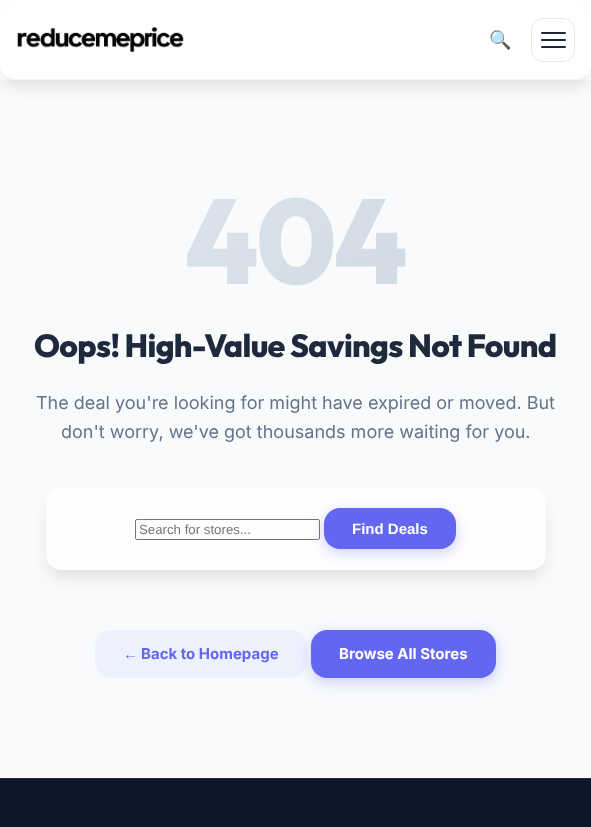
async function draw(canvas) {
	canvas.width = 591;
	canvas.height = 827;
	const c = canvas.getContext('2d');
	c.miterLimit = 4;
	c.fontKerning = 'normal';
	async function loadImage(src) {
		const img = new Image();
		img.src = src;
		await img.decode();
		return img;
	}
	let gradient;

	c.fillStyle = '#fff';
	c.fillRect(0, 0, 591, 827);
	c.fillStyle = '#f8fafc';
	c.fillRect(0, 80, 591, 698);
	c.save();
	c.beginPath();
	c.moveTo(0, 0);
	c.lineTo(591, 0);
	c.lineTo(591, 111);
	c.lineTo(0, 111);
	c.closePath();
	c.moveTo(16, 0);
	c.lineTo(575, 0);
	c.bezierCurveTo(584, 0, 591, 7, 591, 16);
	c.lineTo(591, 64);
	c.bezierCurveTo(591, 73, 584, 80, 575, 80);
	c.lineTo(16, 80);
	c.bezierCurveTo(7, 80, 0, 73, 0, 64);
	c.lineTo(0, 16);
	c.bezierCurveTo(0, 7, 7, 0, 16, 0);
	c.closePath();
	c.clip('evenodd');
	c.fillStyle = '#0000001a';
	c.filter = 'blur(7.5px)';
	c.beginPath();
	c.roundRect(3, 13, 585, 74, 13);
	c.fill();
	c.filter = 'none';
	c.restore();
	c.fillStyle = '#fffffff2';
	c.beginPath();
	c.roundRect(0, 0, 591, 80, 16);
	c.fill();
	c.beginPath();
	c.moveTo(586, 75);
	c.bezierCurveTo(583, 78, 579, 79.5, 575, 79.5);
	c.lineTo(16, 79.5);
	c.bezierCurveTo(12, 79.5, 8, 78, 5, 75);
	c.strokeStyle = '#f1f5f9';
	c.stroke();
	c.drawImage(await loadImage('img1.png'), 17, 27, 167, 26);
	c.font = '18px Noto Color Emoji';
	c.fillStyle = '#64748b';
	c.fillText('🔍', 489, 46);
	c.beginPath();
	c.roundRect(531.5, 18.5, 43, 43, 11.5);
	c.strokeStyle = '#e2e8f0';
	c.stroke();
	c.fillStyle = '#1e293b';
	c.beginPath();
	c.roundRect(541, 32, 25, 2, 1);
	c.fill();
	c.beginPath();
	c.roundRect(541, 39, 25, 2, 1);
	c.fill();
	c.beginPath();
	c.roundRect(541, 46, 25, 2, 1);
	c.fill();
	c.letterSpacing = '-2.5px';
	c.font = '800 120px Outfit';
	gradient = c.createLinearGradient(125, 70, 466, 410);
	gradient.addColorStop(0, '#e2e8f0');
	gradient.addColorStop(1, '#cbd5e1');
	c.fillStyle = gradient;
	c.fillText('404', 185, 284);
	c.letterSpacing = '-0.65px';
	c.font = '800 32px Outfit';
	c.fillStyle = '#1e293b';
	c.fillText('Oops! High-Value Savings Not Found', 34, 357);
	c.letterSpacing = '0px';
	c.font = '18px Inter';
	c.fillStyle = '#64748b';
	c.fillText('The deal you\'re looking for might have expired or moved. But', 36, 409);
	c.fillText('don\'t worry, we\'ve got thousands more waiting for you.', 61, 438);
	c.save();
	c.beginPath();
	c.moveTo(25, 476);
	c.lineTo(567, 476);
	c.lineTo(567, 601);
	c.lineTo(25, 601);
	c.closePath();
	c.moveTo(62, 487);
	c.lineTo(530, 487);
	c.bezierCurveTo(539, 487, 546, 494, 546, 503);
	c.lineTo(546, 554);
	c.bezierCurveTo(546, 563, 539, 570, 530, 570);
	c.lineTo(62, 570);
	c.bezierCurveTo(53, 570, 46, 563, 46, 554);
	c.lineTo(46, 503);
	c.bezierCurveTo(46, 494, 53, 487, 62, 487);
	c.closePath();
	c.clip('evenodd');
	c.fillStyle = '#0000001a';
	c.filter = 'blur(7.5px)';
	c.beginPath();
	c.roundRect(49, 500, 494, 77, 13);
	c.fill();
	c.filter = 'none';
	c.restore();
	c.fillStyle = '#ffffffd1';
	c.beginPath();
	c.roundRect(46, 487, 500, 83, 16);
	c.fill();
	c.beginPath();
	c.roundRect(135.5, 519.5, 184, 20, 1.5);
	c.strokeStyle = '#767676';
	c.stroke();
	c.font = '13.25px Liberation Sans';
	c.fillStyle = '#757575';
	c.fillText('Search for stores...', 139, 534);
	c.fillStyle = '#6366f14d';
	c.filter = 'blur(7px)';
	c.beginPath();
	c.roundRect(324, 512, 132, 41, 16);
	c.fill();
	c.filter = 'none';
	c.fillStyle = '#6366f1';
	c.beginPath();
	c.roundRect(324, 508, 132, 41, 16);
	c.fill();
	c.font = 'bold 15px Liberation Sans';
	c.fillStyle = '#fff';
	c.fillText('Find Deals', 352, 534);
	c.fillStyle = '#eef2ff';
	c.beginPath();
	c.roundRect(95, 630, 212, 48, 16);
	c.fill();
	c.fillStyle = '#6366f1';
	c.fillText('←', 123, 659);
	c.font = 'bold 15px Inter';
	c.fillText('Back to Homepage', 141, 659);
	c.fillStyle = '#6366f14d';
	c.filter = 'blur(7px)';
	c.beginPath();
	c.roundRect(311, 634, 185, 48, 16);
	c.fill();
	c.filter = 'none';
	c.fillStyle = '#6366f1';
	c.beginPath();
	c.roundRect(311, 630, 185, 48, 16);
	c.fill();
	c.fillStyle = '#fff';
	c.fillText('Browse All Stores', 339, 659);
	c.fillStyle = '#0f172a';
	c.fillRect(0, 779, 591, 48);
	c.fillStyle = '#1e293b';
	c.fillRect(0, 778, 591, 1);
}

draw(document.querySelector('canvas'));
